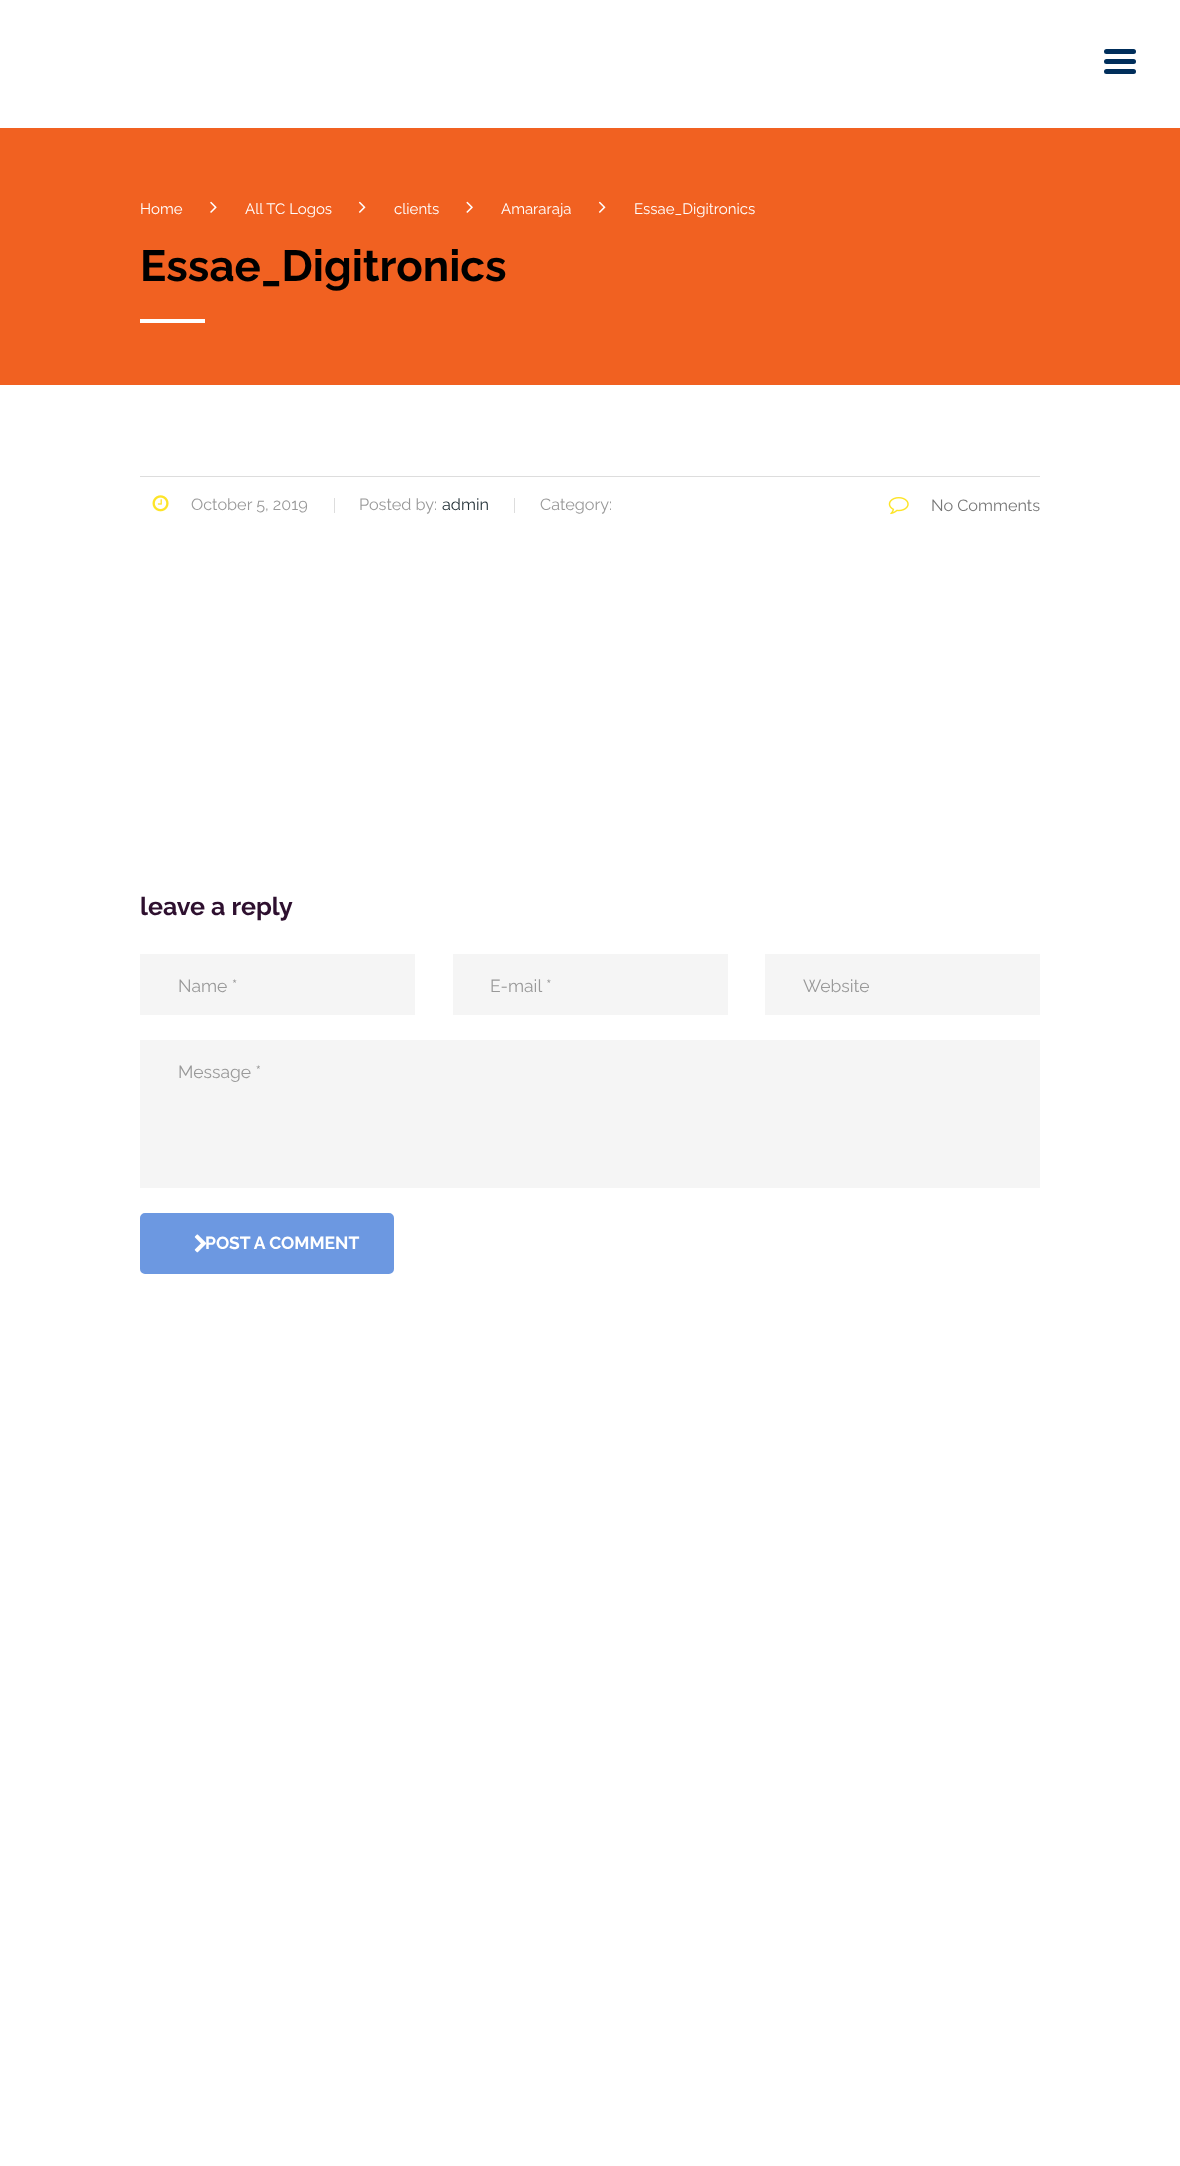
async function draw(canvas) {
	canvas.width = 1180;
	canvas.height = 2166;
	const c = canvas.getContext('2d');
	c.miterLimit = 4;
	c.fontKerning = 'normal';
	async function loadImage(src) {
		const img = new Image();
		img.src = src;
		await img.decode();
		return img;
	}

	c.fillStyle = '#fff';
	c.fillRect(0, 0, 1180, 2166);
	c.fillStyle = '#002e5b';
	c.beginPath();
	c.roundRect(1104, 59, 32, 5, 2.5);
	c.fill();
	c.beginPath();
	c.roundRect(1104, 49, 32, 5, 2.5);
	c.fill();
	c.beginPath();
	c.roundRect(1104, 69, 32, 5, 2.5);
	c.fill();
	c.fillStyle = '#f16121';
	c.fillRect(0, 128, 1180, 257);
	c.font = '15px Raleway';
	c.fillStyle = '#fff';
	c.fillText('Home', 140, 214);
	c.drawImage(await loadImage('img1.png'), 210, 201, 7, 12);
	c.fillText('All TC Logos', 245, 214);
	c.drawImage(await loadImage('img2.png'), 358, 201, 8, 12);
	c.fillText('clients', 394, 214);
	c.drawImage(await loadImage('img3.png'), 466, 201, 7, 12);
	c.fillText('Amararaja', 501, 214);
	c.drawImage(await loadImage('img2.png'), 598, 201, 8, 12);
	c.fillText('Essae_Digitronics', 634, 214);
	c.font = 'bold 43.75px Raleway';
	c.fillStyle = '#000';
	c.fillText('Essae_Digitronics', 140, 281);
	c.fillStyle = '#fff';
	c.fillRect(140, 319, 65, 4);
	c.fillStyle = '#ddd';
	c.fillRect(140, 476, 900, 1);
	c.drawImage(await loadImage('img4.png'), 152, 495, 17, 17);
	c.font = '16.25px Raleway';
	c.fillStyle = '#999';
	c.fillText('October 5, 2019', 191, 510);
	c.fillStyle = '#ddd';
	c.fillRect(334, 498, 1, 15);
	c.fillStyle = '#999';
	c.fillText('Posted by:', 359, 510);
	c.fillStyle = '#243238';
	c.fillText('admin', 442, 510);
	c.fillStyle = '#ddd';
	c.fillRect(514, 498, 1, 15);
	c.fillStyle = '#999';
	c.fillText('Category:', 540, 510);
	c.drawImage(await loadImage('img5.png'), 888, 497, 21, 18);
	c.fillStyle = '#777';
	c.fillText('No Comments', 931, 511);
	c.font = 'bold 25px Raleway';
	c.fillStyle = '#2e102f';
	c.fillText('leave a reply', 140, 915);
	c.fillStyle = '#f5f5f5';
	c.fillRect(140, 954, 275, 61);
	c.font = '17.5px Raleway';
	c.fillStyle = '#999';
	c.fillText('Name *', 178, 992);
	c.fillStyle = '#f5f5f5';
	c.fillRect(453, 954, 275, 61);
	c.fillStyle = '#999';
	c.fillText('E-mail *', 490, 992);
	c.fillStyle = '#f5f5f5';
	c.fillRect(765, 954, 275, 61);
	c.fillStyle = '#999';
	c.fillText('Website', 803, 992);
	c.fillStyle = '#f5f5f5';
	c.fillRect(140, 1040, 900, 148);
	c.fillStyle = '#999';
	c.fillText('Message *', 178, 1078);
	c.fillStyle = '#6c98e1';
	c.beginPath();
	c.roundRect(142, 1215, 250, 57, 3);
	c.fill();
	c.strokeStyle = '#6c98e1';
	c.lineWidth = 4;
	c.stroke();
	c.font = 'bold 17.5px Raleway';
	c.fillStyle = '#fff';
	c.fillText('POST A COMMENT', 205, 1249);
	c.drawImage(await loadImage('img6.png'), 194, 1234, 13, 19);
}

draw(document.querySelector('canvas'));
